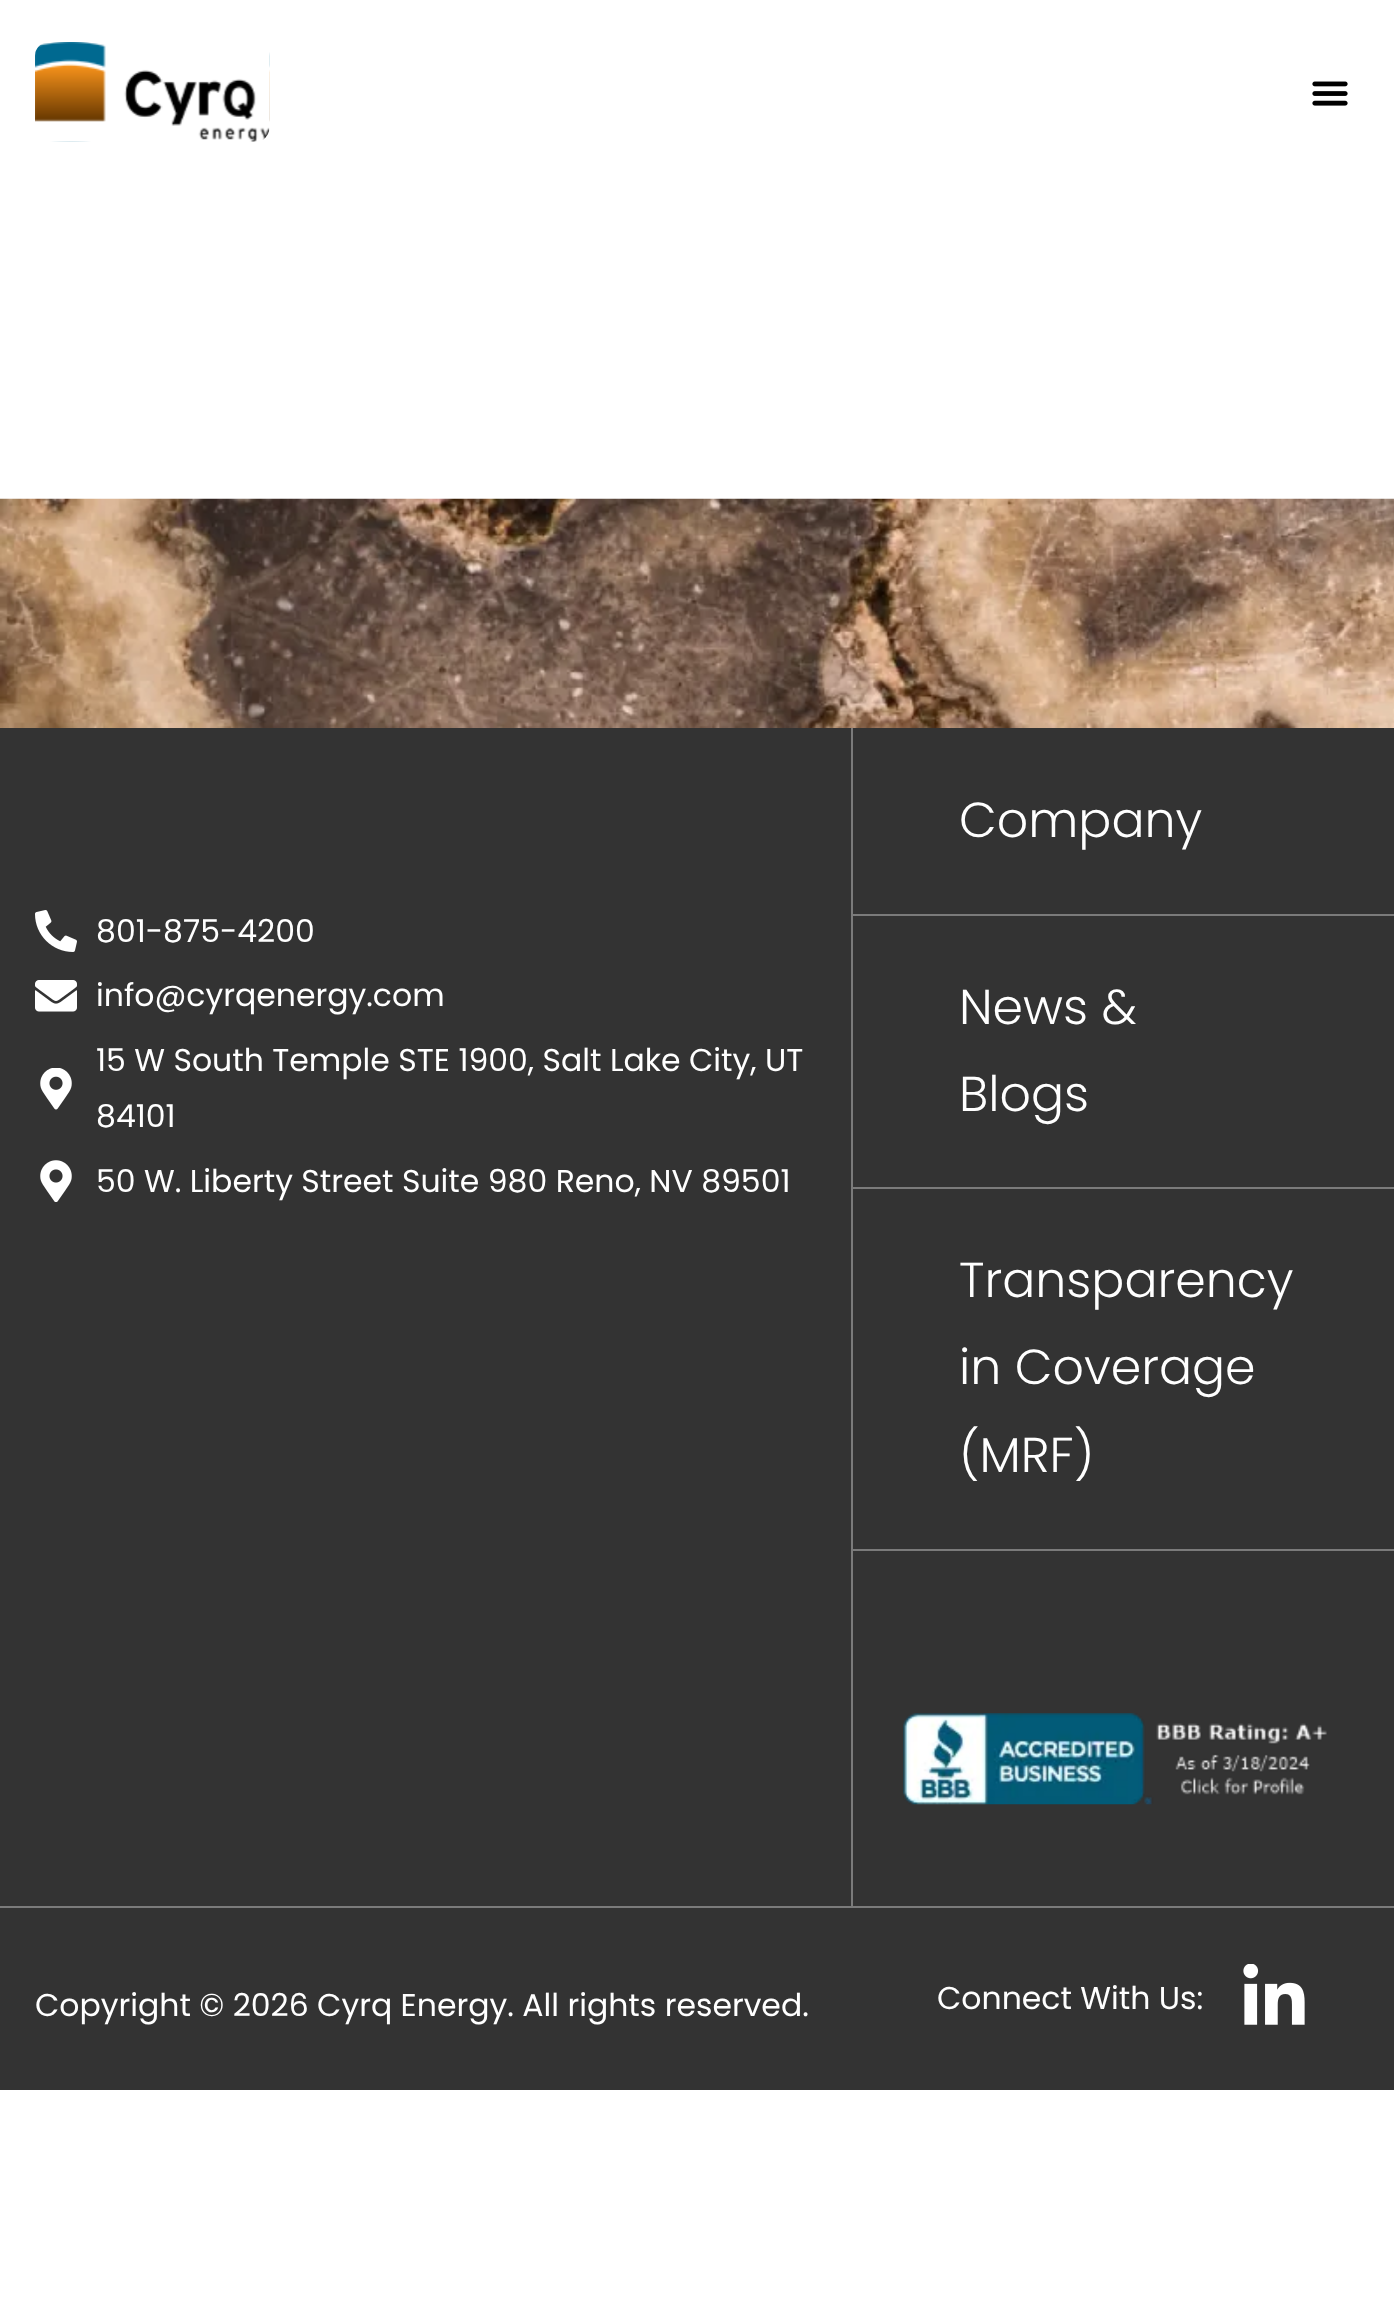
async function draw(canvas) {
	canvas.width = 1394;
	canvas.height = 2324;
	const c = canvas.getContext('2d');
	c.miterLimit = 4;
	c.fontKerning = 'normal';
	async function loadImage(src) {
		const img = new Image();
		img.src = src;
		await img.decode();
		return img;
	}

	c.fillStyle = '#fff';
	c.fillRect(0, 0, 1394, 2324);
	c.drawImage(await loadImage('img1.png'), 35, 42, 235, 100);
	c.drawImage(await loadImage('img2.png'), 1312, 81, 36, 25);
	c.drawImage(await loadImage('img3.png'), 0, 498, 1394, 230);
	c.fillStyle = '#333';
	c.fillRect(0, 728, 1394, 1178);
	c.fillStyle = '#7b7b7b';
	c.fillRect(0, 1906, 1394, 2);
	c.drawImage(await loadImage('img4.png'), 35, 910, 42, 42);
	c.font = '31.5px Poppins';
	c.fillStyle = '#fff';
	c.fillText('801-875-4200', 96, 942);
	c.drawImage(await loadImage('img5.png'), 35, 980, 42, 32);
	c.fillText('info@cyrqenergy.com', 96, 1006);
	c.drawImage(await loadImage('img6.png'), 40, 1068, 32, 42);
	c.fillText('15 W South Temple STE 1900, Salt Lake City, UT', 96, 1071);
	c.fillText('84101', 96, 1127);
	c.drawImage(await loadImage('img7.png'), 40, 1160, 32, 42);
	c.fillText('50 W. Liberty Street Suite 980 Reno, NV 89501', 96, 1192);
	c.fillStyle = '#7b7b7b';
	c.fillRect(851, 728, 2, 1178);
	c.fillRect(852, 1549, 542, 2);
	c.font = '300 49px Poppins';
	c.fillStyle = '#fff';
	c.fillText('Company', 959, 837);
	c.fillStyle = '#7b7b7b';
	c.fillRect(852, 914, 542, 2);
	c.fillStyle = '#fff';
	c.fillText('News &', 959, 1024);
	c.fillText('Blogs', 959, 1111);
	c.fillStyle = '#7b7b7b';
	c.fillRect(852, 1187, 542, 2);
	c.fillStyle = '#fff';
	for (const [text, x, y] of [
		['Transparency', 959, 1297],
		['in Coverage', 959, 1384],
		['(MRF)', 959, 1472],
	]) {
		c.fillText(text, x, y);
	}
	c.drawImage(await loadImage('img8.png'), 903, 1713, 424, 92);
	c.fillStyle = '#333';
	c.fillRect(0, 1908, 1394, 182);
	c.font = '31.5px Poppins';
	c.fillStyle = '#fff';
	c.fillText('Copyright © 2026 Cyrq Energy. All rights reserved.', 35, 2016);
	c.fillText('Connect With Us:', 937, 2009);
	c.drawImage(await loadImage('img9.png'), 1243, 1964, 62, 61);
}

draw(document.querySelector('canvas'));
